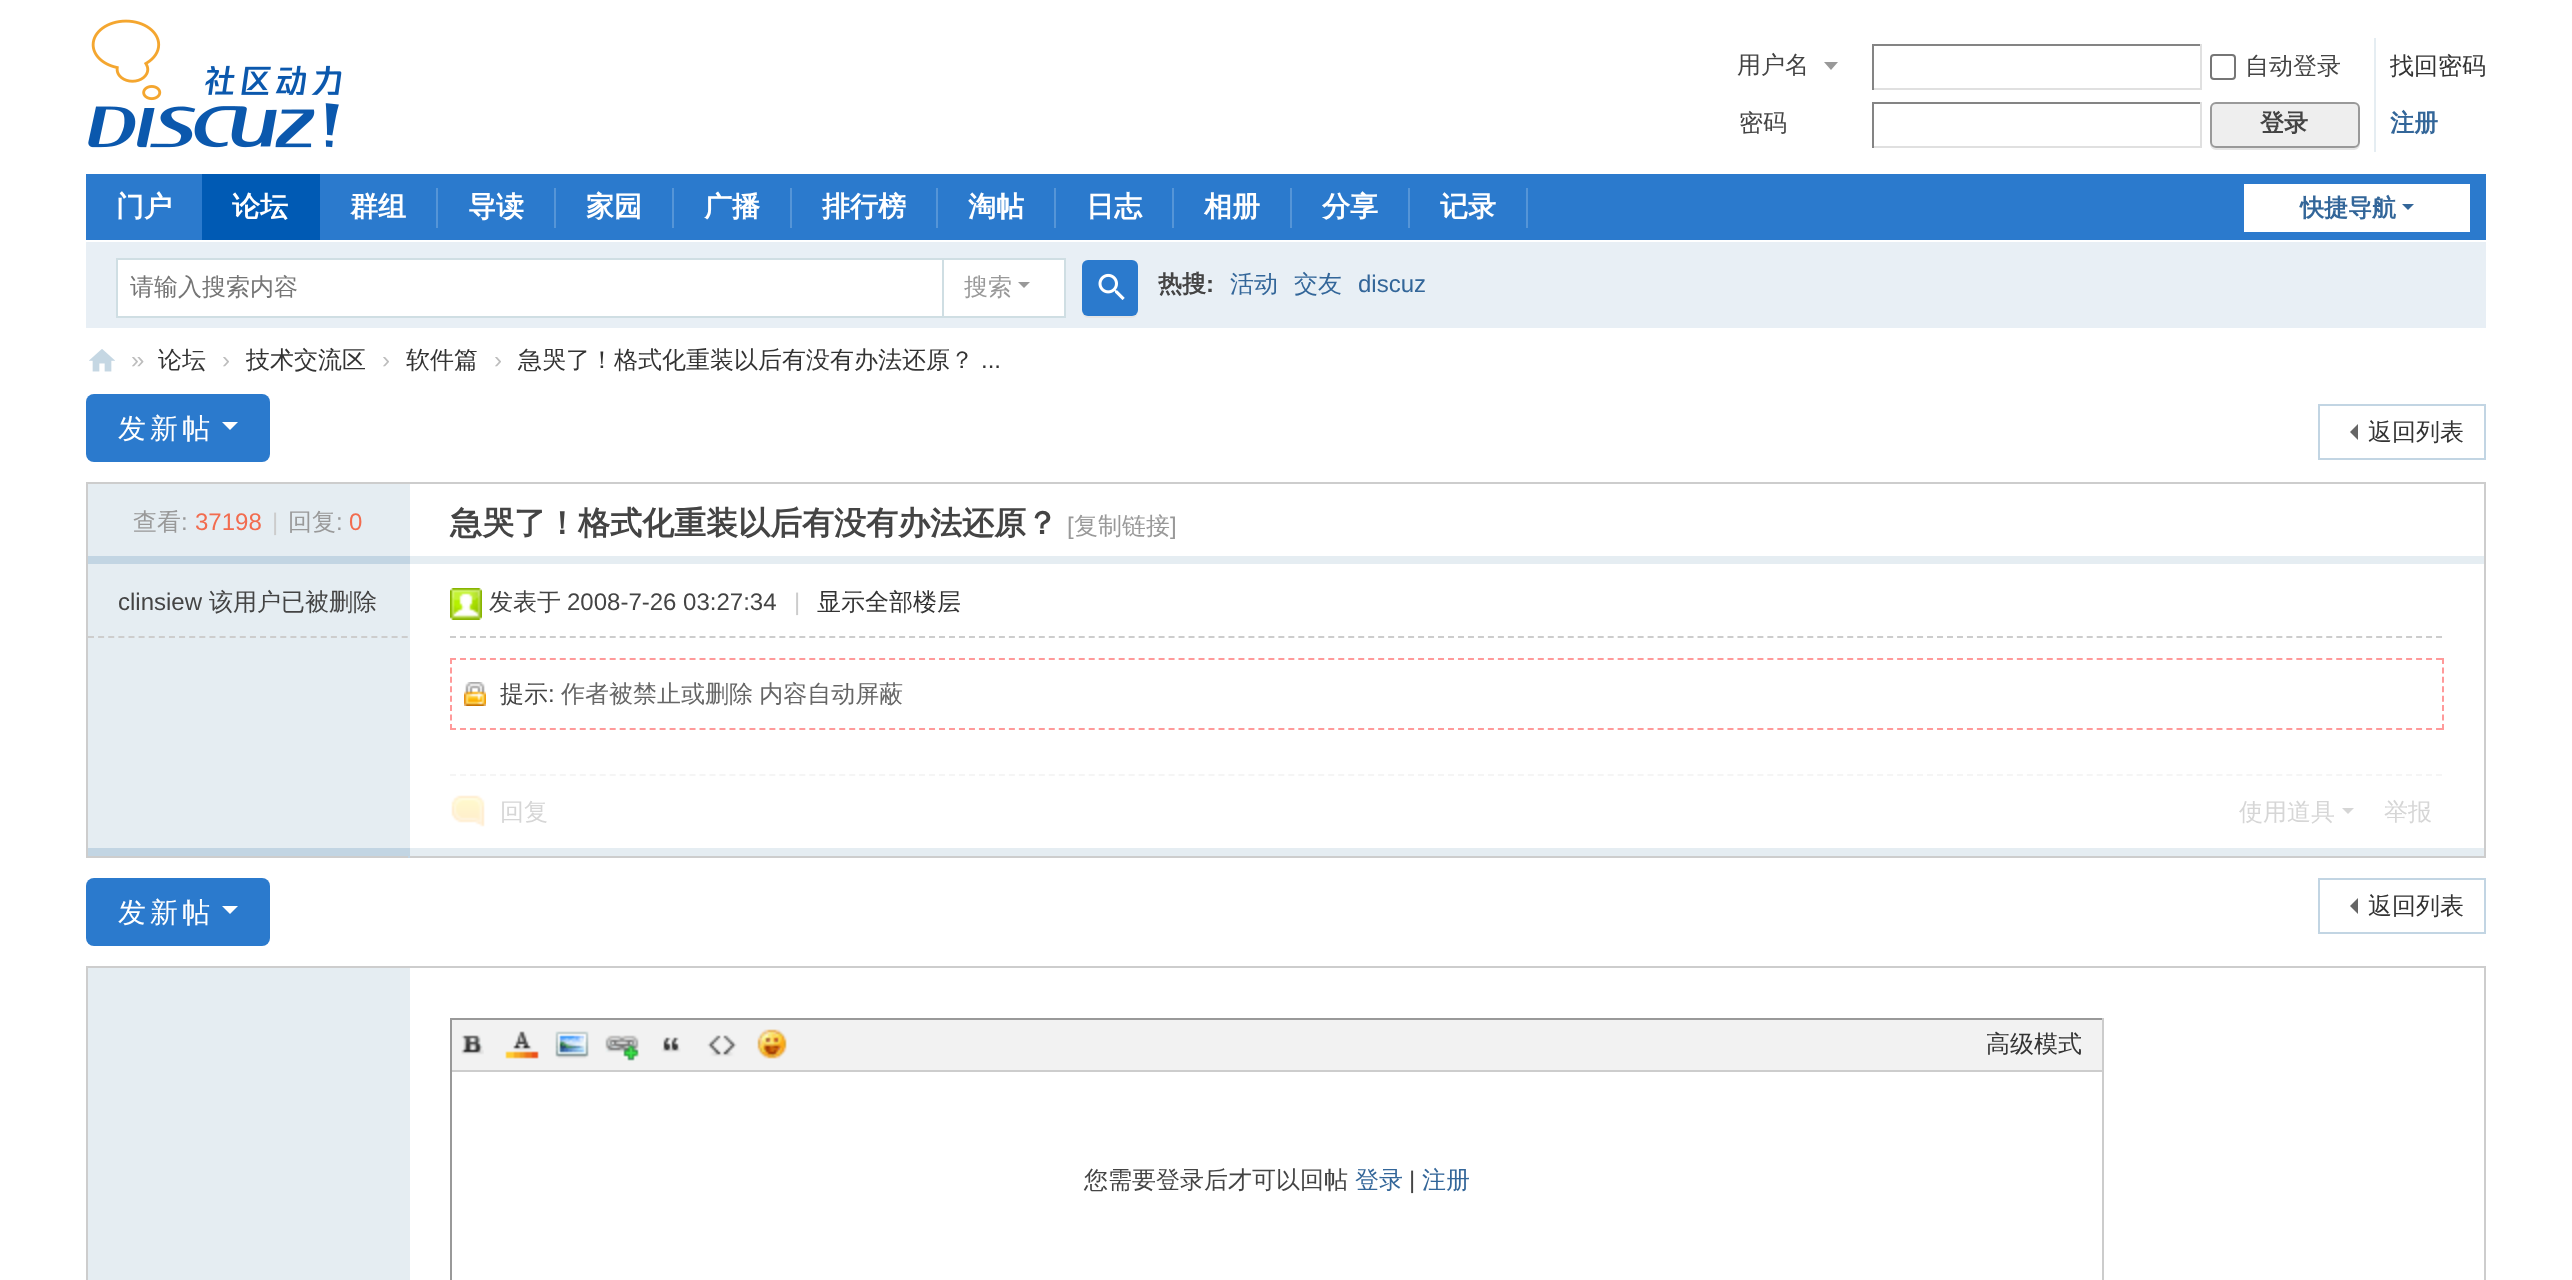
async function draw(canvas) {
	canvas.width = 2572;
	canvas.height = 1280;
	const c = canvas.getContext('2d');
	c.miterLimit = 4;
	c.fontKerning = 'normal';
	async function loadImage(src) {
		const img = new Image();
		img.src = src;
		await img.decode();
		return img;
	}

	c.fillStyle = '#fff';
	c.fillRect(0, 0, 2572, 1280);
	c.drawImage(await loadImage('img1.png'), 88, 19, 254, 129);
	c.fillStyle = '#999';
	c.beginPath();
	c.moveTo(1838, 62);
	c.lineTo(1824, 62);
	c.lineTo(1831, 70);
	c.closePath();
	c.fill();
	c.font = '500 24px WenQuanYi Zen Hei';
	c.fillStyle = '#444';
	c.fillText('用户名', 1737, 73);
	for (const [x, y, w, h, color] of [
		[1872, 44, 330, 2, '#848484'],
		[2200, 44, 2, 46, '#e0e0e0'],
		[1872, 88, 330, 2, '#e0e0e0'],
		[1872, 44, 2, 46, '#848484'],
	]) {
		c.fillStyle = color;
		c.fillRect(x, y, w, h);
	}
	c.beginPath();
	c.roundRect(2211, 55, 24, 24, 3);
	c.strokeStyle = '#767676';
	c.lineWidth = 2;
	c.stroke();
	c.fillStyle = '#444';
	c.fillText('自动登录', 2245, 74);
	c.fillStyle = '#333';
	c.fillText('找回密码', 2390, 74);
	c.fillStyle = '#444';
	c.fillText('密码', 1739, 131);
	for (const [x, y, w, h, color] of [
		[1872, 102, 330, 2, '#848484'],
		[2200, 102, 2, 46, '#e0e0e0'],
		[1872, 146, 330, 2, '#e0e0e0'],
		[1872, 102, 2, 46, '#848484'],
		[2374, 38, 2, 114, '#e5edf2'],
	]) {
		c.fillStyle = color;
		c.fillRect(x, y, w, h);
	}
	c.fillStyle = '#e5e5e5';
	c.beginPath();
	c.moveTo(2210, 142);
	c.lineTo(2210, 144);
	c.bezierCurveTo(2210, 147, 2213, 150, 2216, 150);
	c.lineTo(2354, 150);
	c.bezierCurveTo(2357, 150, 2360, 147, 2360, 144);
	c.lineTo(2360, 142);
	c.bezierCurveTo(2360, 145, 2357, 148, 2354, 148);
	c.lineTo(2216, 148);
	c.bezierCurveTo(2213, 148, 2210, 145, 2210, 142);
	c.closePath();
	c.fill();
	c.fillStyle = '#eee';
	c.beginPath();
	c.roundRect(2211, 103, 148, 44, 5);
	c.fill();
	c.strokeStyle = '#999';
	c.stroke();
	c.font = 'bold 24px WenQuanYi Zen Hei';
	c.fillStyle = '#444';
	c.fillText('登录', 2260, 131);
	c.fillStyle = '#369';
	c.fillText('注册', 2390, 131);
	c.fillStyle = '#2b7acd';
	c.fillRect(86, 174, 2400, 66);
	c.font = 'bold 28px WenQuanYi Zen Hei';
	c.fillStyle = '#fff';
	c.fillText('门户', 116, 216);
	c.fillStyle = '#005ab4';
	c.fillRect(202, 174, 118, 66);
	c.fillStyle = '#fff';
	c.fillText('论坛', 232, 216);
	c.fillStyle = '#5595d7';
	c.fillRect(436, 188, 2, 40);
	c.fillStyle = '#fff';
	c.fillText('群组', 350, 216);
	c.fillStyle = '#5595d7';
	c.fillRect(554, 188, 2, 40);
	c.fillStyle = '#fff';
	c.fillText('导读', 468, 216);
	c.fillStyle = '#5595d7';
	c.fillRect(672, 188, 2, 40);
	c.fillStyle = '#fff';
	c.fillText('家园', 586, 216);
	c.fillStyle = '#5595d7';
	c.fillRect(790, 188, 2, 40);
	c.fillStyle = '#fff';
	c.fillText('广播', 704, 216);
	c.fillStyle = '#5595d7';
	c.fillRect(936, 188, 2, 40);
	c.fillStyle = '#fff';
	c.fillText('排行榜', 822, 216);
	c.fillStyle = '#5595d7';
	c.fillRect(1054, 188, 2, 40);
	c.fillStyle = '#fff';
	c.fillText('淘帖', 968, 216);
	c.fillStyle = '#5595d7';
	c.fillRect(1172, 188, 2, 40);
	c.fillStyle = '#fff';
	c.fillText('日志', 1086, 216);
	c.fillStyle = '#5595d7';
	c.fillRect(1290, 188, 2, 40);
	c.fillStyle = '#fff';
	c.fillText('相册', 1204, 216);
	c.fillStyle = '#5595d7';
	c.fillRect(1408, 188, 2, 40);
	c.fillStyle = '#fff';
	c.fillText('分享', 1322, 216);
	c.fillStyle = '#5595d7';
	c.fillRect(1526, 188, 2, 40);
	c.fillStyle = '#fff';
	c.fillText('记录', 1440, 216);
	c.fillRect(2244, 184, 226, 48);
	c.font = 'bold 24px WenQuanYi Zen Hei';
	c.fillStyle = '#369';
	c.fillText('快捷导航', 2300, 216);
	c.beginPath();
	c.moveTo(2402, 204);
	c.lineTo(2414, 204);
	c.lineTo(2408, 210);
	c.closePath();
	c.fill();
	for (const [x, y, w, h, color] of [
		[86, 242, 2400, 86, '#e8eff5'],
		[940, 258, 126, 2, '#cfdee3'],
		[1064, 258, 2, 60, '#cfdee3'],
		[940, 316, 126, 2, '#cfdee3'],
	]) {
		c.fillStyle = color;
		c.fillRect(x, y, w, h);
	}
	c.fillStyle = '#fff';
	c.beginPath();
	c.rect(117, 259, 826, 58);
	c.fill();
	c.strokeStyle = '#cfdee3';
	c.stroke();
	c.font = '500 24px WenQuanYi Zen Hei';
	c.fillStyle = '#757575';
	c.fillText('请输入搜索内容', 130, 295);
	c.fillStyle = '#fff';
	c.fillRect(944, 260, 120, 56);
	c.fillStyle = '#999';
	c.fillText('搜索', 964, 295);
	c.beginPath();
	c.moveTo(1018, 282);
	c.lineTo(1030, 282);
	c.lineTo(1024, 288);
	c.closePath();
	c.fill();
	c.fillStyle = '#e5e5e5';
	c.beginPath();
	c.moveTo(1082, 310);
	c.bezierCurveTo(1082, 319, 1088, 318, 1095, 318);
	c.lineTo(1125, 318);
	c.bezierCurveTo(1132, 318, 1138, 319, 1138, 310);
	c.bezierCurveTo(1138, 313, 1135, 316, 1132, 316);
	c.lineTo(1088, 316);
	c.bezierCurveTo(1085, 316, 1082, 313, 1082, 310);
	c.closePath();
	c.fill();
	c.fillStyle = '#2b7acd';
	c.beginPath();
	c.roundRect(1082, 260, 56, 56, 6);
	c.fill();
	c.drawImage(await loadImage('img2.png'), 1098, 273, 27, 27);
	c.font = 'bold 24px WenQuanYi Zen Hei';
	c.fillStyle = '#444';
	c.fillText('热搜', 1158, 292);
	c.font = 'bold 24px Liberation Sans';
	c.fillText(':', 1206, 292);
	c.font = '500 24px WenQuanYi Zen Hei';
	c.fillStyle = '#369';
	c.fillText('活动', 1230, 292);
	c.fillText('交友', 1294, 292);
	c.font = '24px Liberation Sans';
	c.fillText('discuz', 1358, 292);
	c.drawImage(await loadImage('img3.png'), 89, 349, 26, 23);
	c.fillStyle = '#bdbdbd';
	c.fillText('»', 131, 368);
	c.font = '500 24px WenQuanYi Zen Hei';
	c.fillStyle = '#333';
	c.fillText('论坛', 158, 368);
	c.font = '24px Liberation Sans';
	c.fillStyle = '#bdbdbd';
	c.fillText('›', 222, 368);
	c.font = '500 24px WenQuanYi Zen Hei';
	c.fillStyle = '#333';
	c.fillText('技术交流区', 246, 368);
	c.font = '24px Liberation Sans';
	c.fillStyle = '#bdbdbd';
	c.fillText('›', 382, 368);
	c.font = '500 24px WenQuanYi Zen Hei';
	c.fillStyle = '#333';
	c.fillText('软件篇', 406, 368);
	c.font = '24px Liberation Sans';
	c.fillStyle = '#bdbdbd';
	c.fillText('›', 494, 368);
	c.font = '500 24px WenQuanYi Zen Hei';
	c.fillStyle = '#333';
	c.fillText('急哭了！格式化重装以后有没有办法还原？', 518, 368);
	c.font = '24px Liberation Sans';
	c.fillText('...', 981, 368);
	c.fillStyle = '#2b7acd';
	c.beginPath();
	c.roundRect(86, 394, 184, 68, 8);
	c.fill();
	c.letterSpacing = '4px';
	c.font = '500 28px WenQuanYi Zen Hei';
	c.fillStyle = '#fff';
	c.fillText('发新帖', 118, 438);
	c.beginPath();
	c.moveTo(222, 422);
	c.lineTo(238, 422);
	c.lineTo(230, 430);
	c.closePath();
	c.fill();
	c.strokeStyle = '#c2d5e3';
	c.strokeRect(2319, 405, 166, 54);
	c.fillStyle = '#666';
	c.beginPath();
	c.moveTo(2358, 424);
	c.lineTo(2358, 440);
	c.lineTo(2350, 432);
	c.closePath();
	c.fill();
	c.letterSpacing = '0px';
	c.font = '500 24px WenQuanYi Zen Hei';
	c.fillStyle = '#333';
	c.fillText('返回列表', 2368, 440);
	c.strokeStyle = '#cdcdcd';
	c.strokeRect(87, 483, 2398, 374);
	c.fillStyle = '#e5edf2';
	c.fillRect(88, 484, 322, 72);
	c.fillStyle = '#999';
	c.fillText('查看', 133, 530);
	c.font = '24px Liberation Sans';
	c.fillText(':', 181, 530);
	c.fillStyle = '#f26c4f';
	c.fillText('37198', 195, 530);
	c.fillStyle = '#ccc';
	c.fillText('|', 272, 530);
	c.font = '500 24px WenQuanYi Zen Hei';
	c.fillStyle = '#999';
	c.fillText('回复', 288, 530);
	c.font = '24px Liberation Sans';
	c.fillText(':', 336, 530);
	c.fillStyle = '#f26c4f';
	c.fillText('0', 349, 530);
	c.font = 'bold 32px WenQuanYi Zen Hei';
	c.fillStyle = '#444';
	c.fillText('急哭了！格式化重装以后有没有办法还原？', 450, 534);
	c.font = '24px Liberation Sans';
	c.fillStyle = '#999';
	c.fillText('[', 1067, 534);
	c.font = '500 24px WenQuanYi Zen Hei';
	c.fillText('复制链接', 1074, 534);
	c.font = '24px Liberation Sans';
	c.fillText(']', 1170, 534);
	for (const [x, y, w, h, color] of [
		[88, 556, 322, 8, '#c2d5e3'],
		[410, 556, 2074, 8, '#e5edf2'],
		[88, 564, 322, 284, '#e5edf2'],
	]) {
		c.fillStyle = color;
		c.fillRect(x, y, w, h);
	}
	c.beginPath();
	c.moveTo(88, 637);
	c.lineTo(408, 637);
	c.setLineDash([6, 4.12]);
	c.stroke();
	c.fillStyle = '#444';
	c.fillText('clinsiew', 118, 610);
	c.font = '500 24px WenQuanYi Zen Hei';
	c.fillText('该用户已被删除', 209, 610);
	c.beginPath();
	c.moveTo(450, 637);
	c.lineTo(2444, 637);
	c.setLineDash([6, 3.98]);
	c.stroke();
	c.drawImage(await loadImage('img4.png'), 450, 588, 32, 32);
	c.fillText('发表于', 489, 610);
	c.font = '24px Liberation Sans';
	c.fillText('2008-7-26 03:27:34', 567, 610);
	c.fillStyle = '#ccc';
	c.fillText('|', 794, 610);
	c.font = '500 24px WenQuanYi Zen Hei';
	c.fillStyle = '#333';
	c.fillText('显示全部楼层', 817, 610);
	c.drawImage(await loadImage('img5.png'), 464, 682, 22, 24);
	c.beginPath();
	c.moveTo(450, 659);
	c.lineTo(2444, 659);
	c.strokeStyle = '#ff9a9a';
	c.stroke();
	c.beginPath();
	c.moveTo(2443, 658);
	c.lineTo(2443, 730);
	c.setLineDash([6, 3.42]);
	c.stroke();
	c.beginPath();
	c.moveTo(450, 729);
	c.lineTo(2444, 729);
	c.setLineDash([6, 3.98]);
	c.stroke();
	c.beginPath();
	c.moveTo(451, 658);
	c.lineTo(451, 730);
	c.setLineDash([6, 3.42]);
	c.stroke();
	c.fillStyle = '#444';
	c.fillText('提示', 500, 702);
	c.font = '24px Liberation Sans';
	c.fillText(':', 548, 702);
	c.wordSpacing = '-1px';
	c.font = '500 24px WenQuanYi Zen Hei';
	c.fillStyle = '#666';
	c.fillText('作者被禁止或删除 内容自动屏蔽', 561, 702);
	c.beginPath();
	c.moveTo(450, 775);
	c.lineTo(2444, 775);
	c.strokeStyle = '#f5f5f5';
	c.setLineDash([6, 3.98]);
	c.stroke();
	c.drawImage(await loadImage('img6.png'), 451, 795, 34, 32);
	c.wordSpacing = '0px';
	c.fillStyle = '#d6d6d6';
	c.fillText('回复', 500, 820);
	c.fillText('使用道具', 2239, 820);
	c.beginPath();
	c.moveTo(2342, 808);
	c.lineTo(2354, 808);
	c.lineTo(2348, 814);
	c.closePath();
	c.fill();
	c.fillText('举报', 2384, 820);
	for (const [x, y, w, h, color] of [
		[408, 848, 2, 10, '#c2d5e3'],
		[88, 848, 322, 8, '#c2d5e3'],
		[410, 848, 2074, 8, '#e5edf2'],
	]) {
		c.fillStyle = color;
		c.fillRect(x, y, w, h);
	}
	c.fillStyle = '#2b7acd';
	c.beginPath();
	c.roundRect(86, 878, 184, 68, 8);
	c.fill();
	c.letterSpacing = '4px';
	c.font = '500 28px WenQuanYi Zen Hei';
	c.fillStyle = '#fff';
	c.fillText('发新帖', 118, 922);
	c.beginPath();
	c.moveTo(222, 906);
	c.lineTo(238, 906);
	c.lineTo(230, 914);
	c.closePath();
	c.fill();
	c.strokeStyle = '#c2d5e3';
	c.setLineDash([]);
	c.strokeRect(2319, 879, 166, 54);
	c.fillStyle = '#666';
	c.beginPath();
	c.moveTo(2358, 898);
	c.lineTo(2358, 914);
	c.lineTo(2350, 906);
	c.closePath();
	c.fill();
	c.letterSpacing = '0px';
	c.font = '500 24px WenQuanYi Zen Hei';
	c.fillStyle = '#333';
	c.fillText('返回列表', 2368, 914);
	c.strokeStyle = '#cdcdcd';
	c.strokeRect(87, 967, 2398, 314);
	for (const [x, y, w, h, color] of [
		[88, 968, 322, 312, '#e5edf2'],
		[450, 1018, 1654, 2, '#999'],
		[2102, 1018, 2, 262, '#ccc'],
		[450, 1018, 2, 262, '#999'],
		[452, 1020, 1650, 50, '#f2f2f2'],
		[452, 1070, 1650, 2, '#cdcdcd'],
	]) {
		c.fillStyle = color;
		c.fillRect(x, y, w, h);
	}
	c.drawImage(await loadImage('img7.png'), 461, 1035, 23, 20);
	c.drawImage(await loadImage('img8.png'), 505, 1031, 34, 28);
	c.drawImage(await loadImage('img9.png'), 555, 1031, 34, 28);
	c.drawImage(await loadImage('img10.png'), 605, 1035, 35, 26);
	c.drawImage(await loadImage('img11.png'), 661, 1037, 20, 16);
	c.drawImage(await loadImage('img12.png'), 707, 1035, 30, 22);
	c.drawImage(await loadImage('img13.png'), 757, 1029, 30, 30);
	c.fillStyle = '#333';
	c.fillText('高级模式', 1986, 1052);
	c.fillStyle = '#444';
	c.fillText('您需要登录后才可以回帖', 1084, 1188);
	c.fillStyle = '#369';
	c.fillText('登录', 1355, 1188);
	c.font = '24px Liberation Sans';
	c.fillStyle = '#444';
	c.fillText('|', 1409, 1188);
	c.font = '500 24px WenQuanYi Zen Hei';
	c.fillStyle = '#369';
	c.fillText('注册', 1422, 1188);
}

draw(document.querySelector('canvas'));
